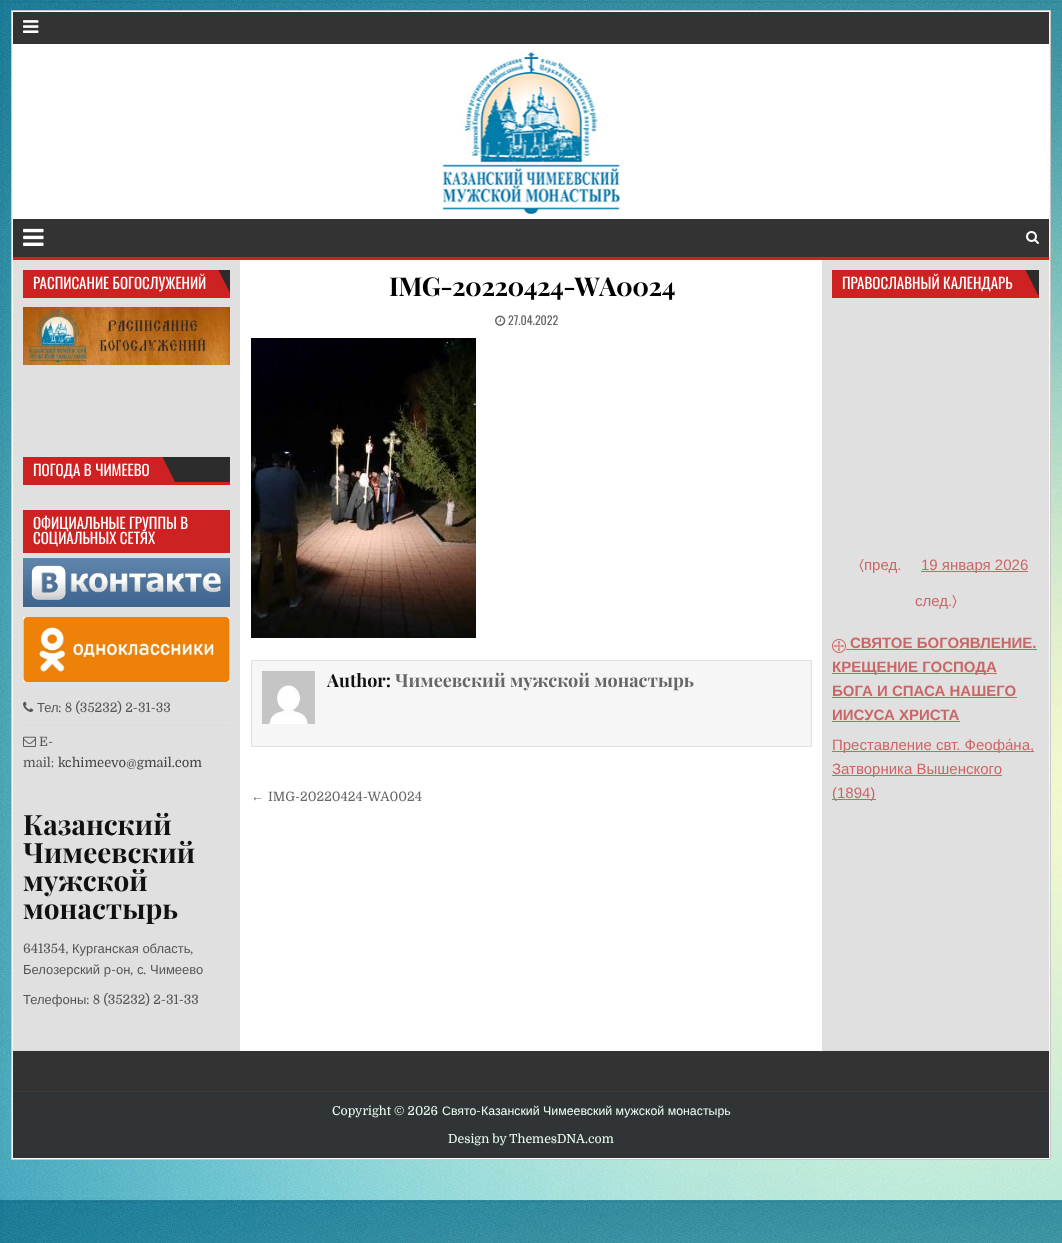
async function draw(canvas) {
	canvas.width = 1062;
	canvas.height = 1243;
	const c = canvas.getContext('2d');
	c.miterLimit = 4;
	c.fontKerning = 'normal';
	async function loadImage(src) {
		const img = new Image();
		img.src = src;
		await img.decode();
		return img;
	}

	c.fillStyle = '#fff';
	c.fillRect(0, 0, 1062, 1243);
	c.drawImage(await loadImage('img1.png'), 0, 0, 1062, 1243);
	c.strokeStyle = '#c8c8c8';
	c.strokeRect(11.5, 10.5, 1039, 1149);
	c.strokeStyle = '#f9f9f9';
	c.strokeRect(12.5, 11.5, 1037, 1147);
	c.fillStyle = '#333';
	c.fillRect(13, 12, 1036, 32);
	c.drawImage(await loadImage('img2.png'), 23, 20, 16, 13);
	c.fillStyle = '#fff';
	c.fillRect(13, 44, 1036, 175);
	c.drawImage(await loadImage('img3.png'), 442, 51, 181, 164);
	c.fillStyle = '#333';
	c.fillRect(13, 219, 1036, 38);
	c.fillStyle = '#cd2122';
	c.fillRect(13, 257, 1036, 3);
	c.drawImage(await loadImage('img4.png'), 23, 228, 21, 18);
	c.drawImage(await loadImage('img5.png'), 1026, 231, 13, 13);
	for (const [x, y, w, h, color] of [
		[240, 260, 582, 791, '#fff'],
		[13, 260, 227, 791, '#e0e0e0'],
		[218, 270, 12, 23, '#2c2c2c'],
		[23, 295, 207, 3, '#cd2122'],
		[23, 270, 193, 25, '#cd2122'],
	]) {
		c.fillStyle = color;
		c.fillRect(x, y, w, h);
	}
	c.font = '15px Oswald';
	c.fillStyle = '#fff';
	c.fillText('РАСПИСАНИЕ БОГОСЛУЖЕНИЙ', 33, 289);
	c.save();
	c.beginPath();
	c.rect(23, 270, 207, 25);
	c.clip();
	c.fillStyle = '#cd2122';
	c.beginPath();
	c.moveTo(216, 295);
	c.lineTo(216, 265);
	c.lineTo(231, 295);
	c.closePath();
	c.fill();
	c.restore();
	c.drawImage(await loadImage('img6.png'), 23, 307, 207, 59);
	for (const [x, y, w, h, color] of [
		[162, 457, 68, 25, '#2c2c2c'],
		[23, 482, 207, 3, '#cd2122'],
		[23, 457, 137, 25, '#cd2122'],
	]) {
		c.fillStyle = color;
		c.fillRect(x, y, w, h);
	}
	c.fillStyle = '#fff';
	c.fillText('ПОГОДА В ЧИМЕЕВО', 33, 476);
	c.save();
	c.beginPath();
	c.rect(23, 457, 207, 25);
	c.clip();
	c.fillStyle = '#cd2122';
	c.beginPath();
	c.moveTo(160, 482);
	c.lineTo(160, 452);
	c.lineTo(175, 482);
	c.closePath();
	c.fill();
	c.restore();
	c.fillStyle = '#cd2122';
	c.fillRect(23, 510, 207, 43);
	c.fillStyle = '#fff';
	c.fillText('ОФИЦИАЛЬНЫЕ ГРУППЫ В', 33, 529);
	c.fillText('СОЦИАЛЬНЫХ СЕТЯХ', 33, 544);
	c.drawImage(await loadImage('img7.png'), 23, 558, 207, 49);
	c.drawImage(await loadImage('img8.png'), 23, 617, 207, 65);
	c.beginPath();
	c.moveTo(23, 725.5);
	c.lineTo(230, 725.5);
	c.strokeStyle = '#d6d6d6';
	c.setLineDash([1, 1]);
	c.stroke();
	c.drawImage(await loadImage('img9.png'), 23, 701, 11, 11);
	c.font = '13px Liberation Sans';
	c.fillStyle = '#555';
	c.fillText('Тел', 37, 712);
	c.font = '13px Domine';
	c.fillText(': 8 (35232) 2-31-33', 58, 712);
	c.drawImage(await loadImage('img10.png'), 23, 736, 13, 11);
	c.fillText('E-', 39, 746);
	c.fillText('mail:', 23, 767);
	c.fillStyle = '#444';
	c.fillText('k', 58, 767);
	c.font = '13px Liberation Sans';
	c.fillText('с', 65, 767);
	c.font = '13px Domine';
	c.fillText('himeevo@gmail.com', 72, 767);
	c.font = 'bold 28px Playfair Display';
	c.fillStyle = '#111';
	for (const [text, x, y] of [
		['Казанский', 23, 835],
		['Чимеевский', 23, 863],
		['мужской', 23, 891],
		['монастырь', 23, 919],
	]) {
		c.fillText(text, x, y);
	}
	c.font = '13px Domine';
	c.fillStyle = '#555';
	c.fillText('641354,', 23, 953);
	c.font = '13px Liberation Sans';
	c.fillText('Курганская область', 72, 953);
	c.font = '13px Domine';
	c.fillText(',', 190, 953);
	c.font = '13px Liberation Sans';
	c.fillText('Белозерский р', 23, 974);
	c.font = '13px Domine';
	c.fillText('-', 111, 974);
	c.font = '13px Liberation Sans';
	for (const [text, x, y] of [
		['он', 116, 974],
		['с', 137, 974],
		['Чимеево', 150, 974],
	]) {
		c.fillText(text, x, y);
	}
	c.font = '13px Domine';
	c.fillText(',', 130, 974);
	c.fillText('.', 143, 974);
	c.font = '13px Liberation Sans';
	c.fillText('Телефоны', 23, 1004);
	c.font = '13px Domine';
	c.fillText(': 8 (35232) 2-31-33', 86, 1004);
	c.letterSpacing = '-0.5px';
	c.font = 'bold 26px Playfair Display';
	c.fillStyle = '#000';
	c.fillText('IMG-20220424-WA0024', 389, 296);
	c.drawImage(await loadImage('img11.png'), 495, 315, 11, 11);
	c.letterSpacing = '0px';
	c.font = '12px Oswald';
	c.fillStyle = '#666';
	c.fillText('27.04.2022', 508, 325);
	c.drawImage(await loadImage('img12.png'), 251, 338, 225, 300);
	c.fillStyle = '#f6f6f6';
	c.beginPath();
	c.rect(251.5, 660.5, 560, 86);
	c.fill();
	c.strokeStyle = '#e0e0e0';
	c.setLineDash([]);
	c.stroke();
	c.drawImage(await loadImage('img13.png'), 262, 671, 53, 53);
	c.font = 'bold 18px Playfair Display';
	c.fillStyle = '#111';
	c.fillText('Author:', 327, 687);
	c.fillStyle = '#666';
	c.fillText('Чимеевский мужской монастырь', 395, 687);
	c.font = '13px Liberation Sans';
	c.fillText('←', 251, 801);
	c.font = '13px Domine';
	c.fillText('IMG-20220424-WA0024', 268, 801);
	for (const [x, y, w, h, color] of [
		[822, 260, 227, 791, '#e0e0e0'],
		[1025, 270, 14, 25, '#2c2c2c'],
		[832, 295, 207, 3, '#cd2122'],
		[832, 270, 191, 25, '#cd2122'],
	]) {
		c.fillStyle = color;
		c.fillRect(x, y, w, h);
	}
	c.font = '15px Oswald';
	c.fillStyle = '#fff';
	c.fillText('ПРАВОСЛАВНЫЙ КАЛЕНДАРЬ', 842, 289);
	c.save();
	c.beginPath();
	c.rect(832, 270, 207, 25);
	c.clip();
	c.fillStyle = '#cd2122';
	c.beginPath();
	c.moveTo(1023, 295);
	c.lineTo(1023, 265);
	c.lineTo(1038, 295);
	c.closePath();
	c.fill();
	c.restore();
	c.font = '15px FreeSans';
	c.fillStyle = '#c66';
	c.fillText('〈', 859, 570);
	c.font = '15px Liberation Sans';
	c.fillText('пред.', 864, 570);
	c.fillRect(921, 571, 107, 1);
	c.fillText('19 января 2026', 921, 570);
	c.fillText('след.', 915, 606);
	c.font = '15px FreeSans';
	c.fillText('〉', 952, 606);
	c.drawImage(await loadImage('img14.png'), 832, 639, 14, 14);
	c.font = 'bold 15px Liberation Sans';
	c.fillText('СВЯТОЕ БОГОЯВЛЕНИЕ.', 850, 648);
	c.fillRect(846, 649, 191, 1);
	c.fillRect(832, 673, 165, 1);
	c.fillText('КРЕЩЕНИЕ ГОСПОДА', 832, 672);
	c.fillText('БОГА И СПАСА НАШЕГО', 832, 696);
	c.fillRect(832, 697, 185, 1);
	c.fillText('ИИСУСА ХРИСТА', 832, 720);
	c.fillRect(832, 721, 128, 1);
	c.fillRect(832, 751, 202, 1);
	c.font = '15px Liberation Sans';
	c.fillText('Преставление свт. Феофа́на,', 832, 750);
	c.fillRect(832, 775, 170, 1);
	c.fillText('Затворника Вышенского', 832, 774);
	c.fillRect(832, 799, 44, 1);
	c.fillText('(1894)', 832, 798);
	for (const [x, y, w, h, color] of [
		[13, 1051, 1036, 40, '#333'],
		[13, 1092, 1036, 66, '#303436'],
		[13, 1091, 1036, 1, '#3d3d3d'],
	]) {
		c.fillStyle = color;
		c.fillRect(x, y, w, h);
	}
	c.font = '12.35px Domine';
	c.fillStyle = '#ecfff1';
	c.fillText('Copyright © 2026', 332, 1115);
	c.font = '12.35px Liberation Sans';
	c.fillText('Свято', 442, 1115);
	c.font = '12.35px Domine';
	c.fillText('-', 476, 1115);
	c.font = '12.35px Liberation Sans';
	c.fillText('Казанский Чимеевский мужской монастырь', 481, 1115);
	c.font = '12.35px Domine';
	c.fillText('Design by ThemesDNA.com', 448, 1143);
}

draw(document.querySelector('canvas'));
